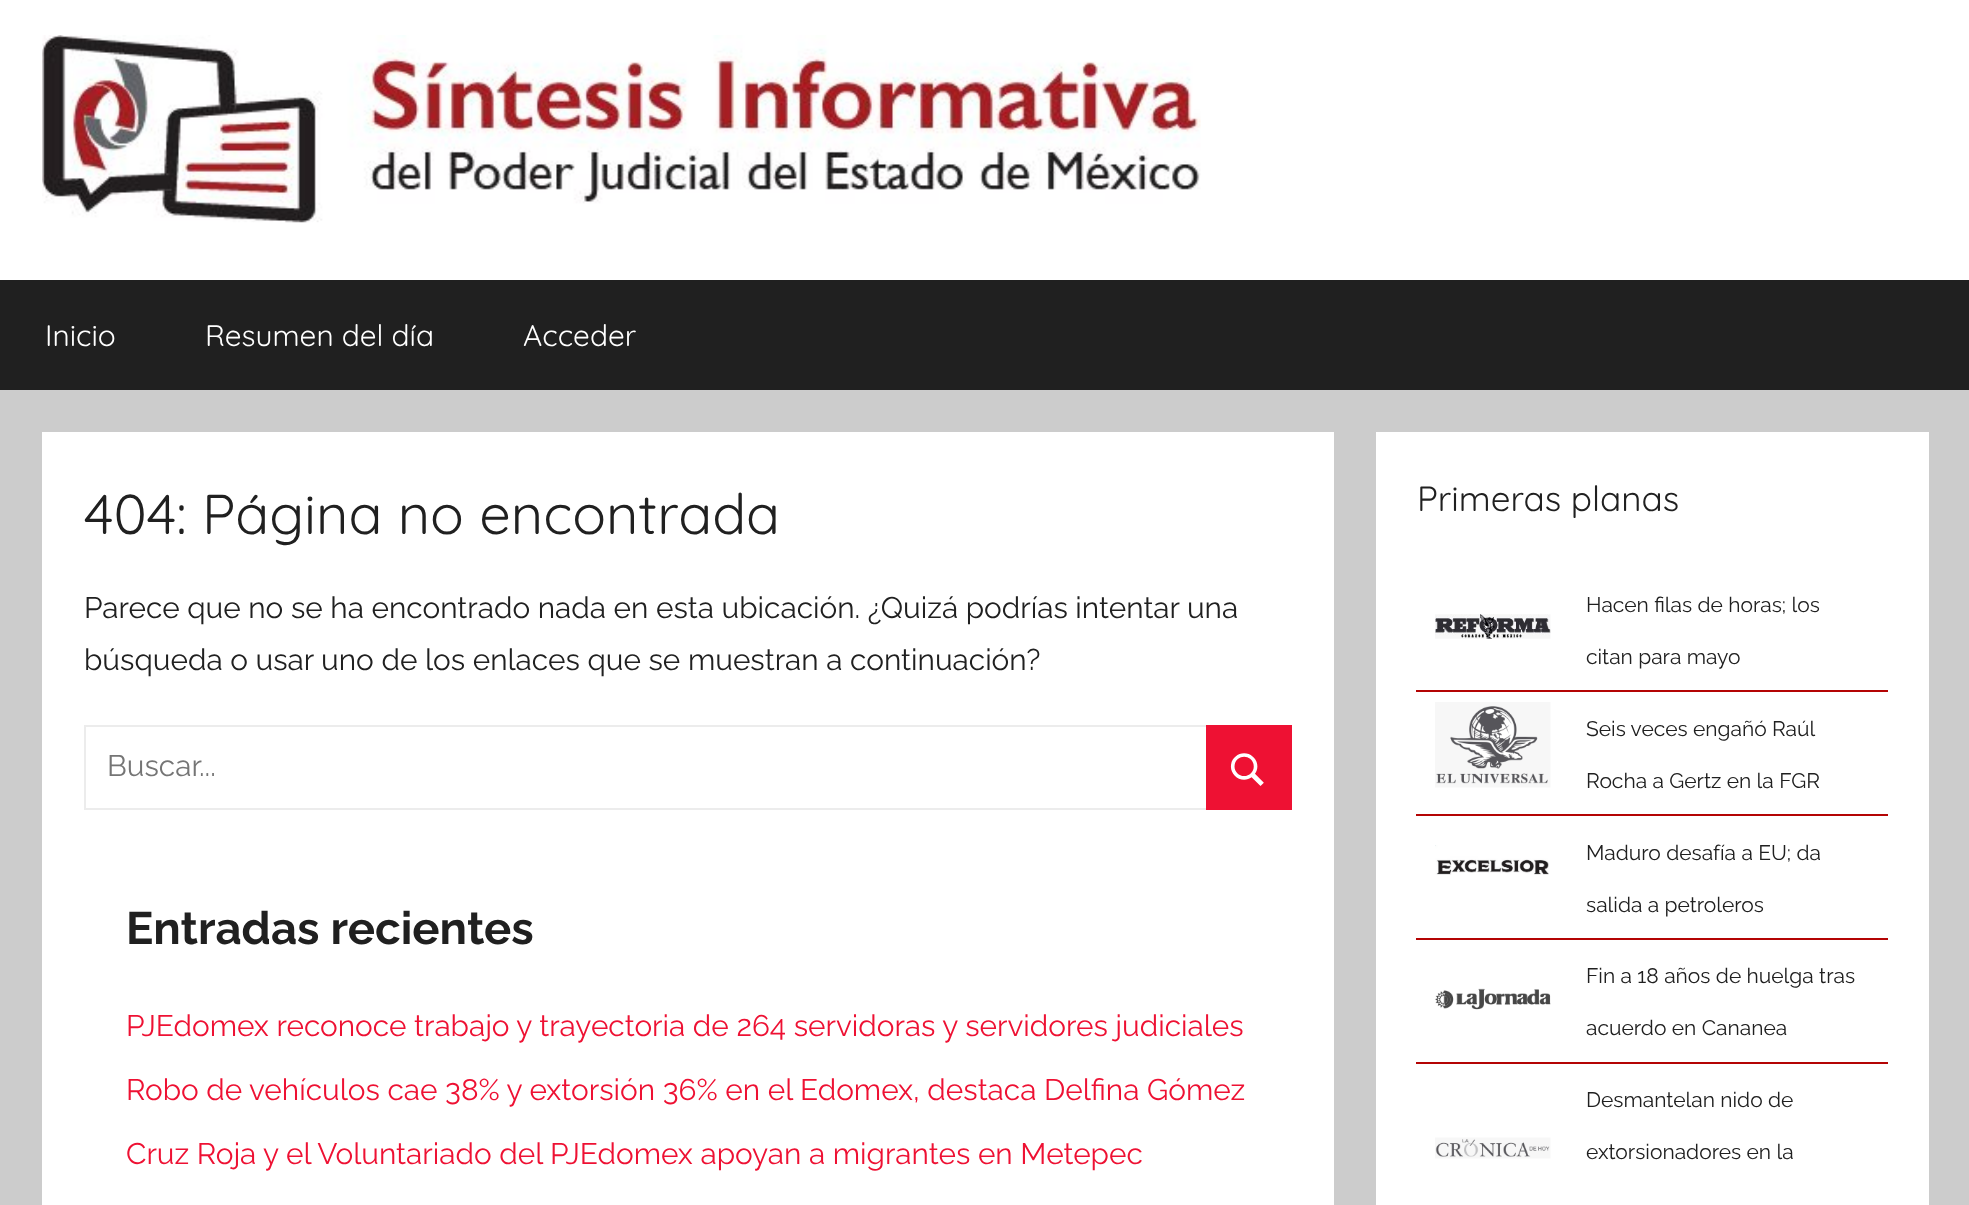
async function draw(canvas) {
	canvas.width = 1969;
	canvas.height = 1205;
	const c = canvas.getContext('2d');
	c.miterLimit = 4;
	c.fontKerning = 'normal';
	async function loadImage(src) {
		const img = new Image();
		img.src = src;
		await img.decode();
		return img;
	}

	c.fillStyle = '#ccc';
	c.fillRect(0, 0, 1969, 1205);
	c.fillStyle = '#fff';
	c.fillRect(0, 0, 1969, 280);
	c.drawImage(await loadImage('img1.png'), 42, 35, 1159, 188);
	c.fillStyle = '#202020';
	c.fillRect(0, 280, 1969, 110);
	c.font = '29.75px Quicksand';
	c.fillStyle = '#fff';
	for (const [text, x, y] of [
		['Inicio', 45, 346],
		['Resumen del día', 205, 346],
		['Acceder', 523, 346],
	]) {
		c.fillText(text, x, y);
	}
	c.fillRect(42, 432, 1292, 773);
	c.font = '56px Quicksand';
	c.fillStyle = '#202020';
	c.fillText('404: Página no encontrada', 84, 534);
	c.font = '29.75px Raleway';
	c.fillText('Parece que no se ha encontrado nada en esta ubicación. ¿Quizá podrías intentar una', 84, 618);
	c.fillText('búsqueda o usar uno de los enlaces que se muestran a continuación?', 84, 670);
	c.strokeStyle = '#ececec';
	c.lineWidth = 2;
	c.strokeRect(85, 726, 1206, 83);
	c.fillStyle = '#757575';
	c.fillText('Buscar...', 107, 776);
	c.fillStyle = '#e13';
	c.fillRect(1206, 725, 86, 85);
	c.drawImage(await loadImage('img2.png'), 1230, 753, 34, 33);
	c.font = 'bold 45.5px Raleway';
	c.fillStyle = '#202020';
	c.fillText('Entradas recientes', 126, 944);
	c.font = '29.75px Raleway';
	c.fillStyle = '#e13';
	for (const [text, x, y] of [
		['PJEdomex reconoce trabajo y trayectoria de 264 servidoras y servidores judiciales', 126, 1036],
		['Robo de vehículos cae 38% y extorsión 36% en el Edomex, destaca Delfina Gómez', 126, 1100],
		['Cruz Roja y el Voluntariado del PJEdomex apoyan a migrantes en Metepec', 126, 1164],
	]) {
		c.fillText(text, x, y);
	}
	c.fillStyle = '#fff';
	c.fillRect(1376, 432, 553, 773);
	c.font = '35px Quicksand';
	c.fillStyle = '#202020';
	c.fillText('Primeras planas', 1417, 511);
	c.fillStyle = '#b40404';
	c.fillRect(1416, 690, 472, 2);
	c.drawImage(await loadImage('img3.png'), 1435, 614, 116, 25);
	c.font = '21px Raleway';
	c.fillStyle = '#202020';
	c.fillText('Hacen filas de horas; los', 1586, 612);
	c.fillText('citan para mayo', 1586, 664);
	c.fillStyle = '#b40404';
	c.fillRect(1416, 814, 472, 2);
	c.drawImage(await loadImage('img4.png'), 1435, 702, 116, 86);
	c.fillStyle = '#202020';
	c.fillText('Seis veces engañó Raúl', 1586, 736);
	c.fillText('Rocha a Gertz en la FGR', 1586, 788);
	c.fillStyle = '#b40404';
	c.fillRect(1416, 938, 472, 2);
	c.drawImage(await loadImage('img5.png'), 1435, 845, 114, 30);
	c.fillStyle = '#202020';
	c.fillText('Maduro desafía a EU; da', 1586, 860);
	c.fillText('salida a petroleros', 1586, 912);
	c.fillStyle = '#b40404';
	c.fillRect(1416, 1062, 472, 2);
	c.drawImage(await loadImage('img6.png'), 1435, 988, 116, 22);
	c.fillStyle = '#202020';
	c.fillText('Fin a 18 años de huelga tras', 1586, 983);
	c.fillText('acuerdo en Cananea', 1586, 1035);
	c.drawImage(await loadImage('img7.png'), 1435, 1137, 116, 22);
	c.fillText('Desmantelan nido de', 1586, 1107);
	c.fillText('extorsionadores en la', 1586, 1159);
}

draw(document.querySelector('canvas'));
